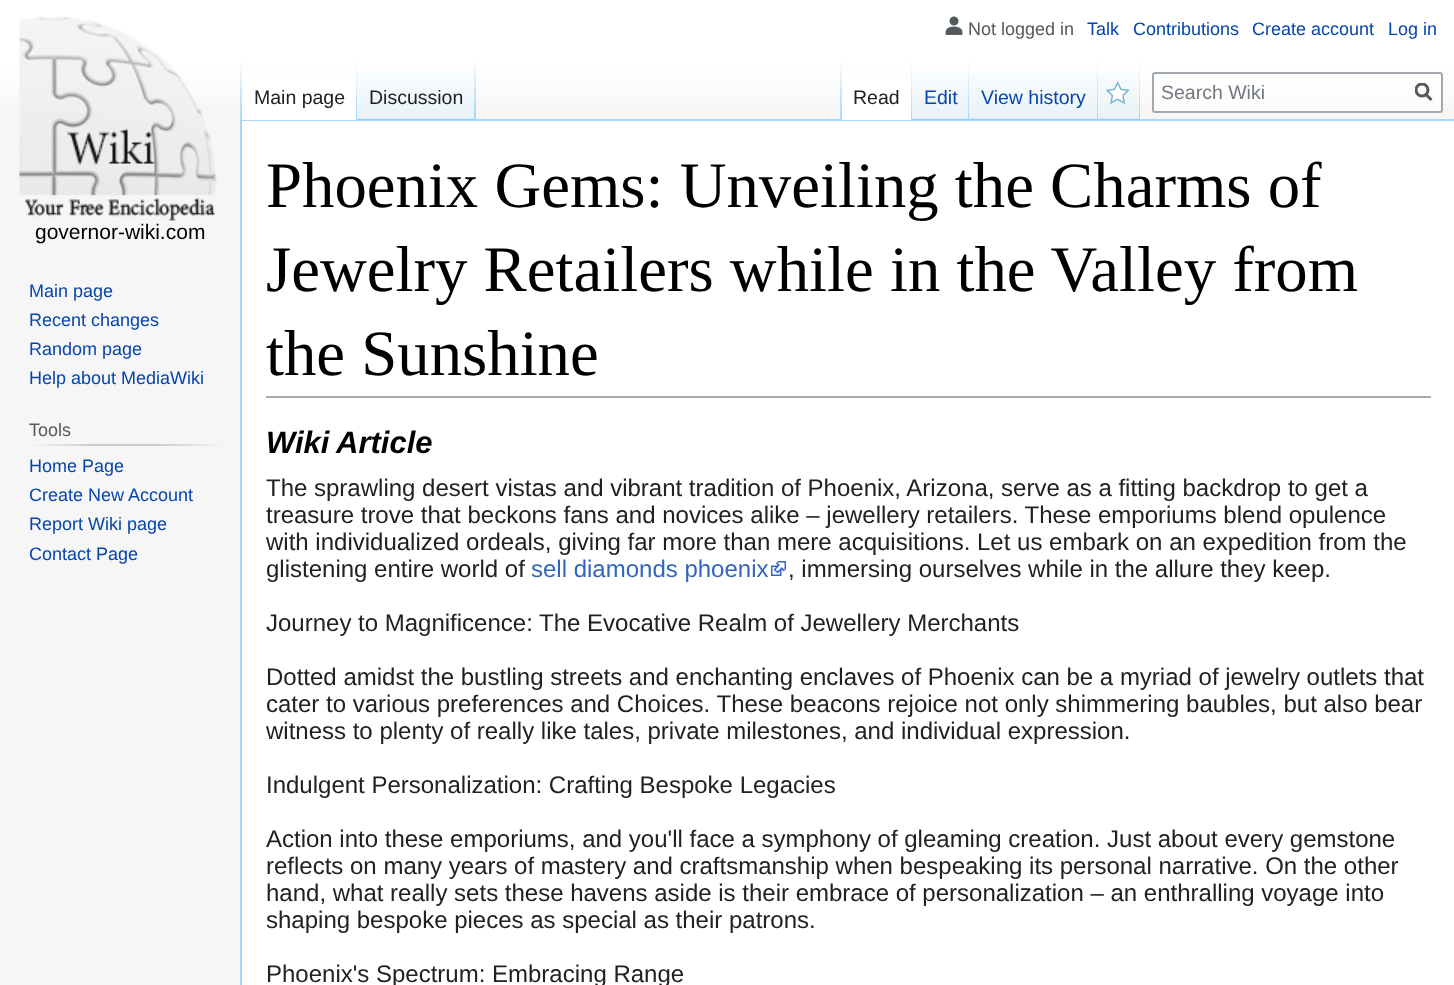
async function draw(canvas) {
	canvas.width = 1454;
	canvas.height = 985;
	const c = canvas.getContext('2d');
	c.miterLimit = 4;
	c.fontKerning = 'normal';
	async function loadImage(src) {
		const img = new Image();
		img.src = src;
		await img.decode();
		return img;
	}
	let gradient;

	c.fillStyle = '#f6f6f6';
	c.fillRect(0, 0, 1454, 985);
	gradient = c.createLinearGradient(728, 0, 728, 120);
	gradient.addColorStop(0.5, '#fff');
	gradient.addColorStop(1, '#f6f6f6');
	c.fillStyle = gradient;
	c.fillRect(0, 0, 1454, 103);
	c.drawImage(await loadImage('img1.png'), 945, 16, 18, 19);
	c.font = '18px Liberation Sans';
	c.fillStyle = '#54595d';
	c.fillText('Not logged in', 968, 35);
	c.fillStyle = '#0645ad';
	for (const [text, x, y] of [
		['Talk', 1087, 35],
		['Contributions', 1133, 35],
		['Create account', 1252, 35],
		['Log in', 1388, 35],
	]) {
		c.fillText(text, x, y);
	}
	c.fillStyle = '#a7d7f9';
	c.fillRect(240, 119, 1214, 2);
	c.fillRect(240, 119, 2, 866);
	gradient = c.createLinearGradient(241, 60, 241, 120);
	gradient.addColorStop(0, '#a7d7f900');
	gradient.addColorStop(1, '#a7d7f9');
	c.fillStyle = gradient;
	c.fillRect(240, 60, 2, 60);
	c.fillStyle = '#fff';
	c.fillRect(242, 77, 114, 43);
	gradient = c.createLinearGradient(356, 60, 356, 120);
	gradient.addColorStop(0, '#fff');
	gradient.addColorStop(1, '#a7d7f9');
	c.fillStyle = gradient;
	c.fillRect(356, 60, 1, 60);
	c.font = '19.5px Liberation Sans';
	c.fillStyle = '#202122';
	c.fillText('Main page', 254, 104);
	gradient = c.createLinearGradient(416, 120, 416, 60);
	gradient.addColorStop(0, '#77c1f6');
	gradient.addColorStop(0.03, '#e8f2f8');
	gradient.addColorStop(1, '#fff');
	c.fillStyle = gradient;
	c.fillRect(357, 69, 119, 51);
	gradient = c.createLinearGradient(475, 60, 475, 120);
	gradient.addColorStop(0, '#a7d7f900');
	gradient.addColorStop(1, '#a7d7f9');
	c.fillStyle = gradient;
	c.fillRect(474, 60, 2, 60);
	c.fillStyle = '#202122';
	c.fillText('Discussion', 369, 104);
	gradient = c.createLinearGradient(841, 60, 841, 120);
	gradient.addColorStop(0, '#a7d7f900');
	gradient.addColorStop(1, '#a7d7f9');
	c.fillStyle = gradient;
	c.fillRect(840, 60, 2, 60);
	c.fillStyle = '#fff';
	c.fillRect(842, 77, 69, 43);
	gradient = c.createLinearGradient(911, 60, 911, 120);
	gradient.addColorStop(0, '#fff');
	gradient.addColorStop(1, '#a7d7f9');
	c.fillStyle = gradient;
	c.fillRect(911, 60, 1, 60);
	c.fillStyle = '#202122';
	c.fillText('Read', 853, 104);
	gradient = c.createLinearGradient(941, 120, 941, 60);
	gradient.addColorStop(0, '#77c1f6');
	gradient.addColorStop(0.03, '#e8f2f8');
	gradient.addColorStop(1, '#fff');
	c.fillStyle = gradient;
	c.fillRect(912, 69, 57, 51);
	gradient = c.createLinearGradient(968, 60, 968, 120);
	gradient.addColorStop(0, '#a7d7f900');
	gradient.addColorStop(1, '#a7d7f9');
	c.fillStyle = gradient;
	c.fillRect(968, 60, 1, 60);
	c.fillStyle = '#0645ad';
	c.fillText('Edit', 924, 104);
	gradient = c.createLinearGradient(1034, 120, 1034, 60);
	gradient.addColorStop(0, '#77c1f6');
	gradient.addColorStop(0.03, '#e8f2f8');
	gradient.addColorStop(1, '#fff');
	c.fillStyle = gradient;
	c.fillRect(969, 69, 129, 51);
	gradient = c.createLinearGradient(1097, 60, 1097, 120);
	gradient.addColorStop(0, '#a7d7f900');
	gradient.addColorStop(1, '#a7d7f9');
	c.fillStyle = gradient;
	c.fillRect(1097, 60, 1, 60);
	c.fillStyle = '#0645ad';
	c.fillText('View history', 981, 104);
	gradient = c.createLinearGradient(1119, 120, 1119, 60);
	gradient.addColorStop(0, '#77c1f6');
	gradient.addColorStop(0.03, '#e8f2f8');
	gradient.addColorStop(1, '#fff');
	c.fillStyle = gradient;
	c.fillRect(1098, 69, 42, 51);
	gradient = c.createLinearGradient(1139, 60, 1139, 120);
	gradient.addColorStop(0, '#a7d7f900');
	gradient.addColorStop(1, '#a7d7f9');
	c.fillStyle = gradient;
	c.fillRect(1139, 60, 1, 60);
	c.drawImage(await loadImage('img2.png'), 1106, 81, 24, 23);
	c.fillStyle = '#ffffff80';
	c.beginPath();
	c.roundRect(1153, 73, 289, 39, 2);
	c.fill();
	c.strokeStyle = '#a2a9b1';
	c.lineWidth = 2;
	c.stroke();
	c.fillStyle = '#72777d';
	c.fillText('Search Wiki', 1161, 99);
	c.beginPath();
	c.moveTo(1431.5, 100);
	c.lineTo(1425.5, 94);
	c.strokeStyle = '#54595d';
	c.lineWidth = 3;
	c.stroke();
	c.save();
	c.beginPath();
	c.rect(1415, 83, 18, 19);
	c.clip();
	c.beginPath();
	c.arc(1422, 90, 6, 0, 2 * Math.PI);
	c.stroke();
	c.restore();
	c.drawImage(await loadImage('img3.png'), 19, 16, 198, 205);
	c.font = '21px Liberation Sans';
	c.fillStyle = '#000';
	c.fillText('governor-wiki.com', 35, 239);
	c.font = '18px Liberation Sans';
	c.fillStyle = '#0645ad';
	for (const [text, x, y] of [
		['Main page', 29, 297],
		['Recent changes', 29, 326],
		['Random page', 29, 355],
		['Help about MediaWiki', 29, 384],
	]) {
		c.fillText(text, x, y);
	}
	gradient = c.createLinearGradient(29, 445, 225, 445);
	gradient.addColorStop(0, '#f6f6f6');
	gradient.addColorStop(0.33, '#c8ccd1');
	gradient.addColorStop(0.66, '#c8ccd1');
	gradient.addColorStop(1, '#f6f6f6');
	c.fillStyle = gradient;
	c.fillRect(29, 444, 196, 2);
	c.fillStyle = '#54595d';
	c.fillText('Tools', 29, 436);
	c.fillStyle = '#0645ad';
	for (const [text, x, y] of [
		['Home Page', 29, 472],
		['Create New Account', 29, 501],
		['Report Wiki page', 29, 530],
		['Contact Page', 29, 560],
	]) {
		c.fillText(text, x, y);
	}
	c.fillStyle = '#fff';
	c.fillRect(242, 121, 1212, 864);
	c.fillStyle = '#a2a9b1';
	c.fillRect(266, 396, 1165, 2);
	c.font = '64.75px Liberation Serif';
	c.fillStyle = '#000';
	for (const [text, x, y] of [
		['Phoenix Gems: Unveiling the Charms of', 266, 207],
		['Jewelry Retailers while in the Valley from', 266, 291],
		['the Sunshine', 266, 375],
	]) {
		c.fillText(text, x, y);
	}
	c.font = 'italic bold 31px Liberation Sans';
	c.fillText('Wiki', 266, 453);
	c.fillText('Article', 336, 453);
	c.font = '24px Liberation Sans';
	c.fillStyle = '#202122';
	for (const [text, x, y] of [
		['The sprawling desert vistas and vibrant tradition of Phoenix, Arizona, serve as a fitting backdrop to get a', 266, 496],
		['treasure trove that beckons fans and novices alike – jewellery retailers. These emporiums blend opulence', 266, 523],
		['with individualized ordeals, giving far more than mere acquisitions. Let us embark on an expedition from the', 266, 550],
		['glistening entire world of', 266, 577],
	]) {
		c.fillText(text, x, y);
	}
	c.fillStyle = '#36b';
	c.fillText('sell diamonds phoenix', 531, 577);
	c.drawImage(await loadImage('img4.png'), 771, 561, 15, 15);
	c.fillStyle = '#202122';
	for (const [text, x, y] of [
		[', immersing ourselves while in the allure they keep.', 788, 577],
		['Journey to Magnificence: The Evocative Realm of Jewellery Merchants', 266, 631],
		['Dotted amidst the bustling streets and enchanting enclaves of Phoenix can be a myriad of jewelry outlets that', 266, 685],
		['cater to various preferences and Choices. These beacons rejoice not only shimmering baubles, but also bear', 266, 712],
		['witness to plenty of really like tales, private milestones, and individual expression.', 266, 739],
		['Indulgent Personalization: Crafting Bespoke Legacies', 266, 793],
		['Action into these emporiums, and you\'ll face a symphony of gleaming creation. Just about every gemstone', 266, 847],
		['reflects on many years of mastery and craftsmanship when bespeaking its personal narrative. On the other', 266, 874],
		['hand, what really sets these havens aside is their embrace of personalization – an enthralling voyage into', 266, 901],
		['shaping bespoke pieces as special as their patrons.', 266, 928],
		['Phoenix\'s Spectrum: Embracing Range', 266, 982],
	]) {
		c.fillText(text, x, y);
	}
}

draw(document.querySelector('canvas'));
